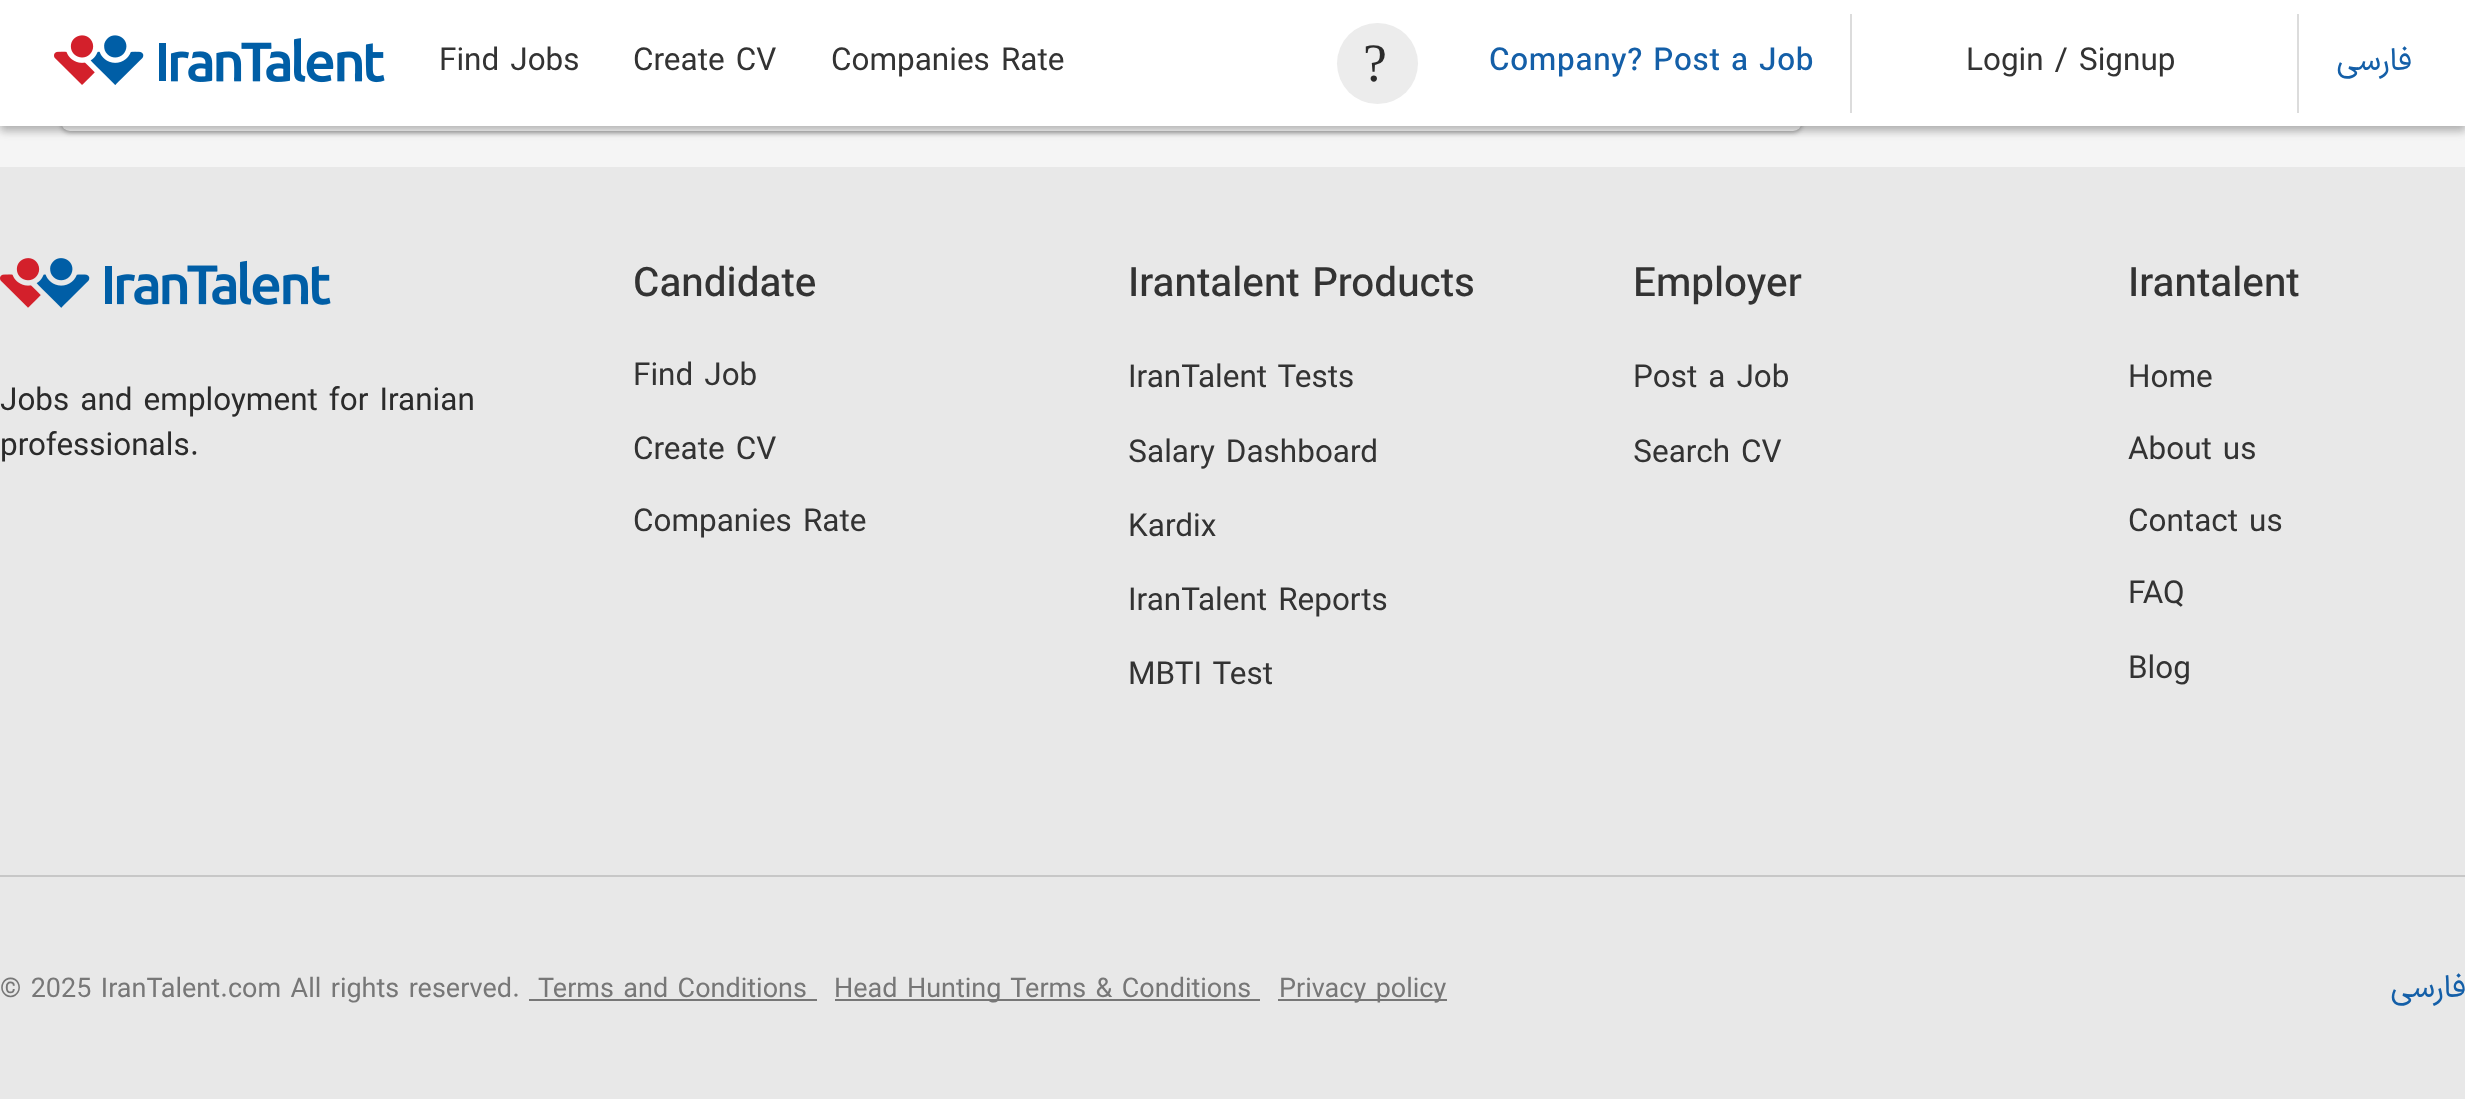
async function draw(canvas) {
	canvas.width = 2465;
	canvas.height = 1099;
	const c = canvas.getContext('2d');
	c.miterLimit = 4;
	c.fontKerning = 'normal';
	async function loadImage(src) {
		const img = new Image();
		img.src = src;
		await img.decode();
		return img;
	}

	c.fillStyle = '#f5f5f5';
	c.fillRect(0, 0, 2465, 1099);
	c.fillStyle = '#2b2b2b59';
	c.filter = 'blur(2px)';
	c.beginPath();
	c.roundRect(61, -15, 1741, 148, 9);
	c.fill();
	c.filter = 'none';
	c.fillStyle = '#fff';
	c.beginPath();
	c.roundRect(61, -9, 1741, 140, 9);
	c.fill();
	c.fillStyle = '#2b2b2b59';
	c.filter = 'blur(4.5px)';
	c.beginPath();
	c.rect(0, 5, 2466, 126);
	c.fill();
	c.filter = 'none';
	c.fillStyle = '#fff';
	c.fillRect(0, 0, 2465, 126);
	c.drawImage(await loadImage('img1.png'), 54, 35, 331, 50);
	c.font = '31.5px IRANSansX';
	c.fillStyle = '#333';
	for (const [text, x, y] of [
		['Find Jobs', 439, 70],
		['Create CV', 633, 70],
		['Companies Rate', 831, 70],
	]) {
		c.fillText(text, x, y);
	}
	c.fillStyle = '#ececec';
	c.beginPath();
	c.arc(1377.5, 63.5, 40.5, 0, 2 * Math.PI);
	c.fill();
	c.letterSpacing = '3px';
	c.font = '54px Liberation Serif';
	c.fillStyle = '#2b2b2b';
	c.fillText('?', 1363, 81);
	c.letterSpacing = '0.7px';
	c.font = '500 31.5px IRANSansX';
	c.fillStyle = '#145fa8';
	c.fillText('Company? Post a Job', 1489, 70);
	c.fillStyle = '#dcdcdc';
	c.fillRect(1850, 14, 2, 99);
	c.letterSpacing = '0px';
	c.font = '31.5px IRANSansX';
	c.fillStyle = '#333';
	c.fillText('Login / Signup', 1966, 70);
	c.fillStyle = '#dcdcdc';
	c.fillRect(2297, 14, 2, 99);
	c.direction = 'rtl';
	c.fillStyle = '#145fa8';
	c.fillText('فارسی', 2412, 70);
	c.fillStyle = '#e8e8e8';
	c.fillRect(0, 167, 2465, 932);
	c.fillStyle = '#c7c7c7';
	c.fillRect(0, 875, 2465, 2);
	c.drawImage(await loadImage('img2.png'), 0, 258, 331, 50);
	c.direction = 'ltr';
	c.fillStyle = '#2b2b2b';
	c.fillText('Jobs and employment for Iranian', 0, 410);
	c.fillText('professionals.', 0, 455);
	c.font = '500 40.5px IRANSansX';
	c.fillStyle = '#333';
	c.fillText('Candidate', 633, 296);
	c.font = '31.5px IRANSansX';
	for (const [text, x, y] of [
		['Find Job', 633, 385],
		['Create CV', 633, 459],
		['Companies Rate', 633, 531],
	]) {
		c.fillText(text, x, y);
	}
	c.font = '500 40.5px IRANSansX';
	c.fillText('Irantalent Products', 1128, 296);
	c.font = '31.5px IRANSansX';
	for (const [text, x, y] of [
		['IranTalent Tests', 1128, 387],
		['Salary Dashboard', 1128, 462],
		['Kardix', 1128, 536],
		['IranTalent Reports', 1128, 610],
		['MBTI Test', 1128, 684],
	]) {
		c.fillText(text, x, y);
	}
	c.font = '500 40.5px IRANSansX';
	c.fillText('Employer', 1633, 296);
	c.font = '31.5px IRANSansX';
	c.fillText('Post a Job', 1633, 387);
	c.fillText('Search CV', 1633, 462);
	c.font = '500 40.5px IRANSansX';
	c.fillText('Irantalent', 2128, 296);
	c.font = '31.5px IRANSansX';
	for (const [text, x, y] of [
		['Home', 2128, 387],
		['About us', 2128, 459],
		['Contact us', 2128, 531],
		['FAQ', 2128, 603],
		['Blog', 2128, 678],
	]) {
		c.fillText(text, x, y);
	}
	c.font = '27px IRANSansX';
	c.fillStyle = '#777';
	c.fillText('© 2025 IranTalent.com All rights reserved.', 0, 997);
	c.fillText('Terms and Conditions', 538, 997);
	c.fillRect(529, 999, 288, 2);
	c.fillRect(835, 999, 425, 2);
	c.fillText('Head Hunting Terms & Conditions', 834, 997);
	c.fillRect(1278, 999, 169, 2);
	c.fillText('Privacy policy', 1279, 997);
	c.direction = 'rtl';
	c.font = '31.5px IRANSansX';
	c.fillStyle = '#145fa8';
	c.fillText('فارسی', 2466, 997);
}

draw(document.querySelector('canvas'));
